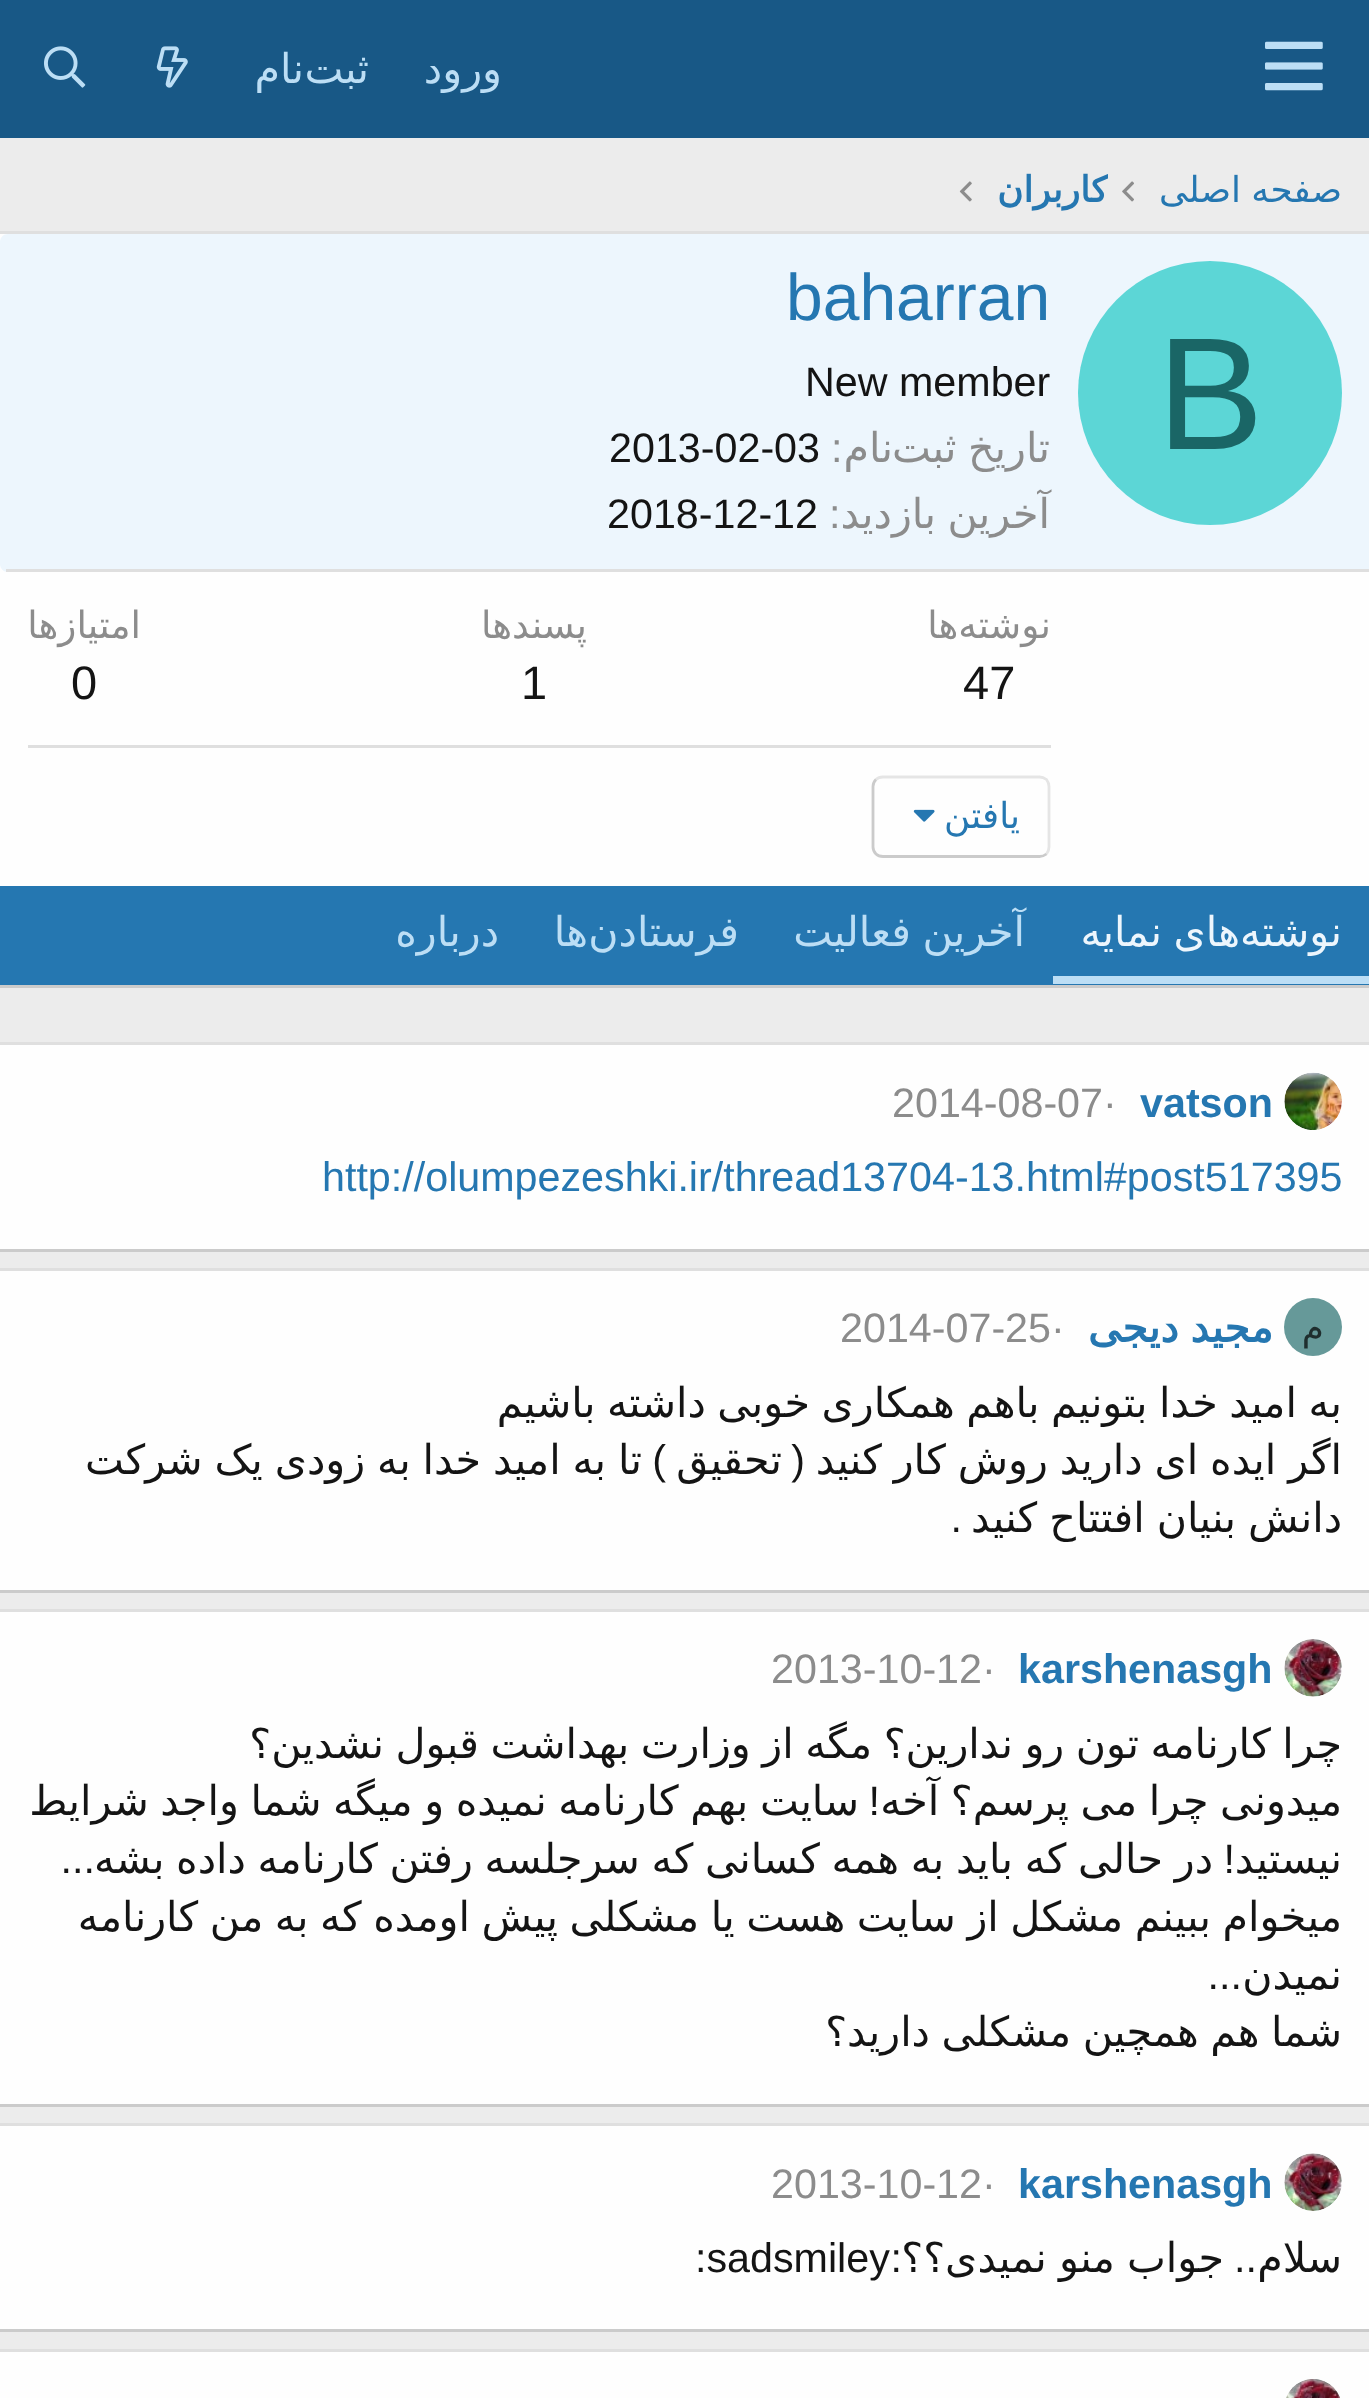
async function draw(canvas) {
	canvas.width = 1369;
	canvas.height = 2398;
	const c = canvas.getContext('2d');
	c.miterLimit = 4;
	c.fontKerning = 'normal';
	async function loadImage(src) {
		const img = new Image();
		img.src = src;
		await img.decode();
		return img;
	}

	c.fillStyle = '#ececec';
	c.fillRect(0, 0, 1369, 2398);
	c.fillStyle = '#185886';
	c.fillRect(0, 0, 1369, 138);
	c.drawImage(await loadImage('img1.png'), 1265, 41, 58, 50);
	c.direction = 'rtl';
	c.font = '41.25px DejaVu Sans';
	c.fillStyle = '#bcdef5';
	for (const [text, x, y] of [
		['ورود', 502, 83],
		['ثبت', 369, 83],
		['نام', 304, 83],
	]) {
		c.fillText(text, x, y);
	}
	c.drawImage(await loadImage('img2.png'), 156, 46, 32, 42);
	c.drawImage(await loadImage('img3.png'), 44, 46, 42, 42);
	c.wordSpacing = '-1px';
	c.font = '35.75px DejaVu Sans';
	c.fillStyle = '#2577b1';
	c.fillText('صفحه اصلی', 1342, 202);
	c.drawImage(await loadImage('img4.png'), 1122, 181, 12, 21);
	c.save();
	c.beginPath();
	c.rect(998, 165, 110, 52);
	c.clip();
	c.wordSpacing = '0px';
	c.font = 'bold 35.75px DejaVu Sans';
	c.fillText('کاربران', 1108, 202);
	c.restore();
	c.drawImage(await loadImage('img5.png'), 959, 181, 13, 21);
	for (const [x, y, w, h, color] of [
		[0, 234, 1369, 652, '#fefefe'],
		[0, 231, 1369, 3, '#dfdfdf'],
		[0, 985, 1369, 3, '#cbcbcb'],
	]) {
		c.fillStyle = color;
		c.fillRect(x, y, w, h);
	}
	c.fillStyle = '#edf6fd';
	c.beginPath();
	c.moveTo(8, 234);
	c.lineTo(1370, 234);
	c.lineTo(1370, 572);
	c.lineTo(8, 572);
	c.bezierCurveTo(3.5, 572, 0, 568.5, 0, 564);
	c.lineTo(0, 242);
	c.bezierCurveTo(0, 237.5, 3.5, 234, 8, 234);
	c.closePath();
	c.fill();
	c.fillStyle = '#dfdfdf';
	c.fillRect(6, 569, 1363, 3);
	c.fillStyle = '#5cd6d6';
	c.beginPath();
	c.arc(1210, 393, 132, 0, 2 * Math.PI);
	c.fill();
	c.wordSpacing = '0px';
	c.direction = 'ltr';
	c.font = '160px Liberation Sans';
	c.fillStyle = '#1a6666';
	c.fillText('B', 1157, 449);
	c.font = '66px Liberation Sans';
	c.fillStyle = '#2577b1';
	c.fillText('baharran', 786, 320);
	c.font = '41.25px Liberation Sans';
	c.fillStyle = '#141414';
	c.fillText('New member', 805, 396);
	c.wordSpacing = '-1.6px';
	c.direction = 'rtl';
	c.font = '41.25px DejaVu Sans';
	c.fillStyle = '#8c8c8c';
	c.fillText('تاریخ ثبت', 1050, 462);
	c.wordSpacing = '0px';
	c.fillText('نام', 893, 462);
	c.direction = 'ltr';
	c.font = '41.25px Liberation Sans';
	c.fillText(':', 831, 462);
	c.fillStyle = '#141414';
	c.fillText('2013-02-03', 609, 462);
	c.wordSpacing = '-1.6px';
	c.direction = 'rtl';
	c.font = '41.25px DejaVu Sans';
	c.fillStyle = '#8c8c8c';
	c.fillText('آخرین بازدید', 1050, 528);
	c.wordSpacing = '0px';
	c.direction = 'ltr';
	c.font = '41.25px Liberation Sans';
	c.fillText(':', 829, 528);
	c.fillStyle = '#141414';
	c.fillText('2018-12-12', 607, 528);
	c.direction = 'rtl';
	c.font = '37.5px DejaVu Sans';
	c.fillStyle = '#8c8c8c';
	c.fillText('نوشته‌ها', 1051, 638);
	c.direction = 'ltr';
	c.font = '47px Liberation Sans';
	c.fillStyle = '#141414';
	c.fillText('47', 963, 699);
	c.direction = 'rtl';
	c.font = '37.5px DejaVu Sans';
	c.fillStyle = '#8c8c8c';
	c.fillText('پسندها', 587, 638);
	c.direction = 'ltr';
	c.font = '47px Liberation Sans';
	c.fillStyle = '#141414';
	c.fillText('1', 521, 699);
	c.direction = 'rtl';
	c.font = '37.5px DejaVu Sans';
	c.fillStyle = '#8c8c8c';
	c.fillText('امتیازها', 141, 638);
	c.direction = 'ltr';
	c.font = '47px Liberation Sans';
	c.fillStyle = '#141414';
	c.fillText('0', 71, 699);
	c.fillStyle = '#dfdfdf';
	c.fillRect(28, 745, 1023, 3);
	c.beginPath();
	c.moveTo(876, 779.5);
	c.bezierCurveTo(877.5, 778, 880, 777, 883, 777);
	c.lineTo(1039.5, 777);
	c.bezierCurveTo(1042, 777, 1044.5, 778, 1046.5, 779.5);
	c.bezierCurveTo(1048, 781.5, 1049, 784, 1049, 786.5);
	c.lineTo(1049, 847);
	c.bezierCurveTo(1049, 849.5, 1048, 852, 1046.5, 854);
	c.strokeStyle = '#e5e5e5';
	c.lineWidth = 2.8;
	c.stroke();
	c.beginPath();
	c.moveTo(1046.5, 854);
	c.bezierCurveTo(1044.5, 855.5, 1042, 856.5, 1039.5, 856.5);
	c.lineTo(883, 856.5);
	c.bezierCurveTo(880, 856.5, 877.5, 855.5, 876, 854);
	c.bezierCurveTo(874, 852, 873, 849.5, 873, 847);
	c.lineTo(873, 786.5);
	c.bezierCurveTo(873, 784, 874, 781.5, 876, 779.5);
	c.strokeStyle = '#cbcbcb';
	c.stroke();
	c.direction = 'rtl';
	c.font = '35.75px DejaVu Sans';
	c.fillStyle = '#2577b1';
	c.fillText('یافتن', 1020, 828);
	c.drawImage(await loadImage('img6.png'), 913, 809, 22, 13);
	c.fillRect(0, 886, 1369, 99);
	c.fillStyle = '#bcdef5';
	c.fillRect(1053, 976, 316, 8);
	c.font = '41.25px DejaVu Sans';
	c.fillStyle = '#edf6fd';
	c.fillText('نوشته', 1342, 946);
	c.wordSpacing = '-1.6px';
	c.fillText('های نمایه', 1240, 946);
	c.fillStyle = '#bcdef5';
	c.fillText('آخرین فعالیت', 1025, 946);
	c.wordSpacing = '0px';
	for (const [text, x, y] of [
		['فرستادن', 739, 946],
		['ها', 588, 946],
		['درباره', 499, 946],
	]) {
		c.fillText(text, x, y);
	}
	for (const [x, y, w, h, color] of [
		[0, 1045, 1369, 204, '#fefefe'],
		[0, 1042, 1369, 3, '#dfdfdf'],
		[0, 1249, 1369, 3, '#cbcbcb'],
	]) {
		c.fillStyle = color;
		c.fillRect(x, y, w, h);
	}
	c.drawImage(await loadImage('img7.png'), 1284, 1072, 58, 58);
	c.direction = 'ltr';
	c.font = 'bold 41.25px Liberation Sans';
	c.fillStyle = '#2577b1';
	c.fillText('vatson', 1140, 1117);
	c.font = '41.25px Liberation Sans';
	c.fillStyle = '#8c8c8c';
	c.fillText('·', 1103, 1117);
	c.fillText('2014-08-07', 892, 1117);
	c.fillStyle = '#2577b1';
	c.fillText('http://olumpezeshki.ir/thread13704-13.html#post517395', 322, 1191);
	for (const [x, y, w, h, color] of [
		[0, 1271, 1369, 319, '#fefefe'],
		[0, 1268, 1369, 3, '#dfdfdf'],
		[0, 1590, 1369, 3, '#cbcbcb'],
	]) {
		c.fillStyle = color;
		c.fillRect(x, y, w, h);
	}
	c.fillStyle = '#699';
	c.beginPath();
	c.arc(1313, 1327, 29, 0, 2 * Math.PI);
	c.fill();
	c.direction = 'rtl';
	c.font = '35.75px DejaVu Sans';
	c.fillStyle = '#1f2e2e';
	c.fillText('م', 1324, 1340);
	c.wordSpacing = '-1.6px';
	c.font = 'bold 41.25px DejaVu Sans';
	c.fillStyle = '#2577b1';
	c.fillText('مجید دیجی', 1273, 1342);
	c.wordSpacing = '0px';
	c.direction = 'ltr';
	c.font = '41.25px Liberation Sans';
	c.fillStyle = '#8c8c8c';
	c.fillText('·', 1051, 1342);
	c.fillText('2014-07-25', 840, 1342);
	c.wordSpacing = '-1.6px';
	c.direction = 'rtl';
	c.font = '41.25px DejaVu Sans';
	c.fillStyle = '#141414';
	c.fillText('به امید خدا بتونیم باهم همکاری خوبی داشته باشیم', 1342, 1417);
	c.wordSpacing = '-1.25px';
	c.fillText('اگر ایده ای دارید روش کار کنید', 1342, 1474);
	c.wordSpacing = '0px';
	c.font = '41.25px Liberation Sans';
	c.fillText('(', 805, 1474);
	c.font = '41.25px DejaVu Sans';
	c.fillText('تحقیق', 782, 1474);
	c.font = '41.25px Liberation Sans';
	c.fillText(')', 666, 1474);
	c.wordSpacing = '-1.25px';
	c.font = '41.25px DejaVu Sans';
	c.fillText('تا به امید خدا به زودی یک شرکت', 642, 1474);
	c.wordSpacing = '-1px';
	c.fillText('دانش بنیان افتتاح کنید', 1342, 1532);
	c.wordSpacing = '0px';
	c.font = '41.25px Liberation Sans';
	c.fillText('.', 962, 1532);
	for (const [x, y, w, h, color] of [
		[0, 1612, 1369, 492, '#fefefe'],
		[0, 1609, 1369, 3, '#dfdfdf'],
		[0, 2104, 1369, 3, '#cbcbcb'],
	]) {
		c.fillStyle = color;
		c.fillRect(x, y, w, h);
	}
	c.drawImage(await loadImage('img8.png'), 1284, 1639, 58, 58);
	c.direction = 'ltr';
	c.font = 'bold 41.25px Liberation Sans';
	c.fillStyle = '#2577b1';
	c.fillText('karshenasgh', 1018, 1683);
	c.font = '41.25px Liberation Sans';
	c.fillStyle = '#8c8c8c';
	c.fillText('·', 982, 1683);
	c.fillText('2013-10-12', 771, 1683);
	c.wordSpacing = '-1.6px';
	c.direction = 'rtl';
	c.font = '41.25px DejaVu Sans';
	c.fillStyle = '#141414';
	c.fillText('چرا کارنامه تون رو ندارین؟ مگه از وزارت بهداشت قبول نشدین؟', 1342, 1758);
	c.wordSpacing = '-1.5px';
	c.fillText('میدونی چرا می پرسم؟ آخه', 1342, 1815);
	c.wordSpacing = '0px';
	c.font = '41.25px Liberation Sans';
	c.fillText('!', 880, 1815);
	c.wordSpacing = '-1.5px';
	c.font = '41.25px DejaVu Sans';
	c.fillText('سایت بهم کارنامه نمیده و میگه شما واجد شرایط', 859, 1815);
	c.fillText('در حالی که باید به همه کسانی که سرجلسه رفتن کارنامه داده بشه', 1213, 1873);
	c.wordSpacing = '0px';
	c.fillText('نیستید', 1342, 1873);
	c.font = '41.25px Liberation Sans';
	c.fillText('!', 1235, 1873);
	c.fillText('...', 95, 1873);
	c.wordSpacing = '-1.6px';
	c.font = '41.25px DejaVu Sans';
	c.fillText('میخوام ببینم مشکل از سایت هست یا مشکلی پیش اومده که به من کارنامه', 1342, 1931);
	c.wordSpacing = '0px';
	c.fillText('نمیدن', 1342, 1989);
	c.font = '41.25px Liberation Sans';
	c.fillText('...', 1242, 1989);
	c.wordSpacing = '-1.6px';
	c.font = '41.25px DejaVu Sans';
	c.fillText('شما هم همچین مشکلی دارید؟', 1342, 2046);
	for (const [x, y, w, h, color] of [
		[0, 2126, 1369, 203, '#fefefe'],
		[0, 2123, 1369, 3, '#dfdfdf'],
		[0, 2329, 1369, 3, '#cbcbcb'],
	]) {
		c.fillStyle = color;
		c.fillRect(x, y, w, h);
	}
	c.drawImage(await loadImage('img9.png'), 1284, 2153, 58, 58);
	c.wordSpacing = '0px';
	c.direction = 'ltr';
	c.font = 'bold 41.25px Liberation Sans';
	c.fillStyle = '#2577b1';
	c.fillText('karshenasgh', 1018, 2198);
	c.font = '41.25px Liberation Sans';
	c.fillStyle = '#8c8c8c';
	c.fillText('·', 982, 2198);
	c.fillText('2013-10-12', 771, 2198);
	c.direction = 'rtl';
	c.font = '41.25px DejaVu Sans';
	c.fillStyle = '#141414';
	c.fillText('سلام', 1342, 2272);
	c.font = '41.25px Liberation Sans';
	c.fillText('..', 1257, 2272);
	c.wordSpacing = '-1px';
	c.font = '41.25px DejaVu Sans';
	c.fillText('جواب منو نمیدی؟؟', 1224, 2272);
	c.wordSpacing = '0px';
	c.font = '41.25px Liberation Sans';
	c.fillText(':', 902, 2272);
	c.direction = 'ltr';
	c.fillText(':sadsmiley', 695, 2272);
	c.fillStyle = '#fefefe';
	c.fillRect(0, 2352, 1369, 46);
	c.fillStyle = '#dfdfdf';
	c.fillRect(0, 2349, 1369, 3);
	c.drawImage(await loadImage('img10.png'), 1286, 2379, 54, 19);
}

draw(document.querySelector('canvas'));
